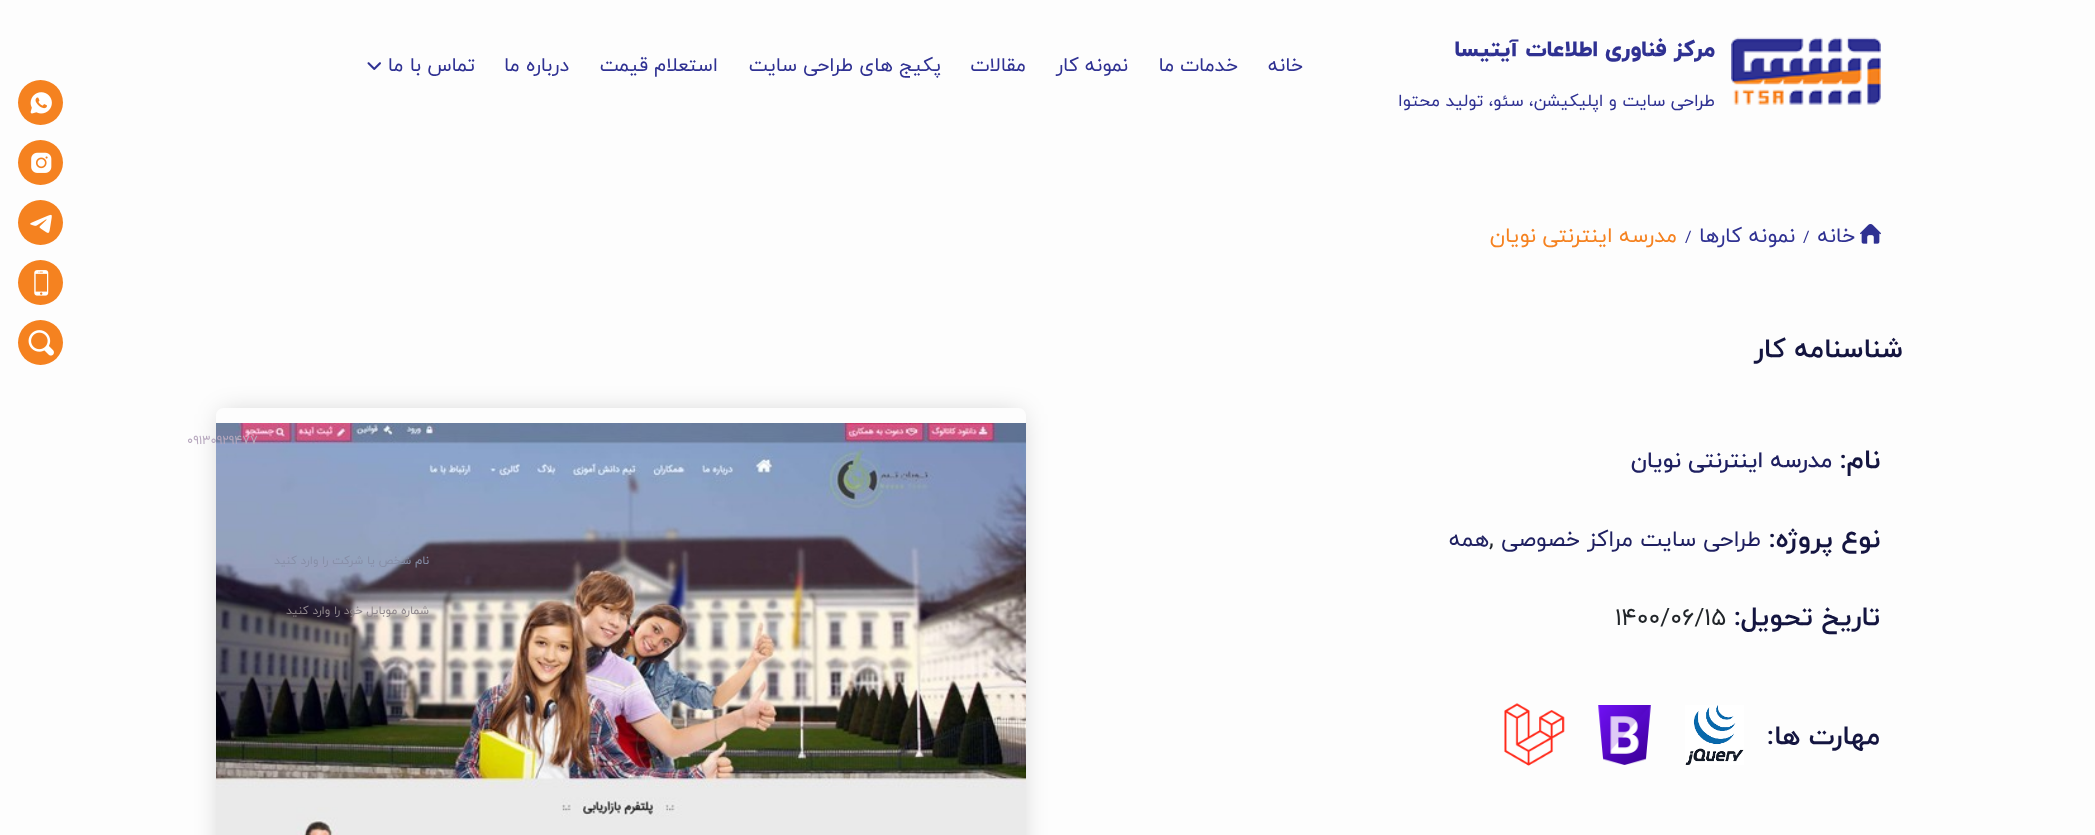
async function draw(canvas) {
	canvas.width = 2095;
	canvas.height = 835;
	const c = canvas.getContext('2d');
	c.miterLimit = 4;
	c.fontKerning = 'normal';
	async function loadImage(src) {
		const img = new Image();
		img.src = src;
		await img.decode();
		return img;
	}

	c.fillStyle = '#fdfdfd';
	c.fillRect(0, 0, 2095, 835);
	c.drawImage(await loadImage('img1.png'), 1731, 37, 150, 68);
	c.direction = 'rtl';
	c.font = '800 22.5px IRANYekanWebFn';
	c.fillStyle = '#2f3192';
	c.fillText('مرکز فناوری اطلاعات آیتیسا', 1715, 56);
	c.font = '17.25px IRANYekanWebFn';
	c.fillText('طراحی سایت و اپلیکیشن، سئو، تولید محتوا', 1715, 106);
	c.font = '19.5px IRANYekanWebFn';
	for (const [text, x, y] of [
		['خانه', 1303, 71],
		['خدمات ما', 1238, 71],
		['نمونه کار', 1128, 71],
		['مقالات', 1026, 71],
		['پکیج های طراحی سایت', 941, 71],
		['استعلام قیمت', 718, 71],
		['درباره ما', 569, 71],
		['تماس با ما', 475, 71],
	]) {
		c.fillText(text, x, y);
	}
	c.drawImage(await loadImage('img2.png'), 367, 62, 14, 8);
	c.fillStyle = '#f58220';
	c.beginPath();
	c.arc(40.5, 102.5, 22.5, 0, 2 * Math.PI);
	c.fill();
	c.drawImage(await loadImage('img3.png'), 30, 92, 22, 22);
	c.beginPath();
	c.arc(40.5, 162.5, 22.5, 0, 2 * Math.PI);
	c.fill();
	c.drawImage(await loadImage('img4.png'), 31, 152, 21, 21);
	c.beginPath();
	c.arc(40.5, 222.5, 22.5, 0, 2 * Math.PI);
	c.fill();
	c.drawImage(await loadImage('img5.png'), 30, 214, 22, 19);
	c.beginPath();
	c.arc(40.5, 282.5, 22.5, 0, 2 * Math.PI);
	c.fill();
	c.drawImage(await loadImage('img6.png'), 34, 270, 15, 26);
	c.beginPath();
	c.arc(40.5, 342.5, 22.5, 0, 2 * Math.PI);
	c.fill();
	c.drawImage(await loadImage('img7.png'), 28, 330, 26, 26);
	c.drawImage(await loadImage('img8.png'), 1860, 224, 21, 20);
	c.font = '21px IRANYekanWebFn';
	c.fillStyle = '#2f3192';
	c.fillText('خانه', 1855, 242);
	c.direction = 'ltr';
	c.font = '16px IRANYekanWebFn';
	c.fillText('/', 1803, 242);
	c.direction = 'rtl';
	c.font = '21px IRANYekanWebFn';
	c.fillText('نمونه کارها', 1795, 242);
	c.direction = 'ltr';
	c.font = '16px IRANYekanWebFn';
	c.fillText('/', 1685, 242);
	c.direction = 'rtl';
	c.font = '21px IRANYekanWebFn';
	c.fillStyle = '#f58220';
	c.fillText('مدرسه اینترنتی نویان', 1677, 242);
	c.font = 'bold 27px IRANYekanWebFn';
	c.fillStyle = '#141540';
	c.fillText('شناسنامه کار', 1903, 357);
	c.fillText('نام:', 1880, 468);
	c.font = '500 22.5px IRANYekanWebFn';
	c.fillStyle = '#1f2061';
	c.fillText('مدرسه اینترنتی نویان', 1832, 467);
	c.font = 'bold 27px IRANYekanWebFn';
	c.fillStyle = '#141540';
	c.fillText('نوع پروژه:', 1880, 547);
	c.font = '22.5px IRANYekanWebFn';
	c.fillStyle = '#1f2061';
	c.fillText('طراحی سایت مراکز خصوصی', 1761, 546);
	c.direction = 'ltr';
	c.font = '24px IRANYekanWebFn';
	c.fillStyle = '#212529';
	c.fillText(',', 1489, 546);
	c.direction = 'rtl';
	c.font = '22.5px IRANYekanWebFn';
	c.fillStyle = '#1f2061';
	c.fillText('همه', 1489, 546);
	c.font = 'bold 27px IRANYekanWebFn';
	c.fillStyle = '#141540';
	c.fillText('تاریخ تحویل:', 1880, 625);
	c.direction = 'ltr';
	c.font = '24px IRANYekanWebFn';
	c.fillStyle = '#212529';
	c.fillText('1400/06/15', 1615, 625);
	c.direction = 'rtl';
	c.font = 'bold 27px IRANYekanWebFn';
	c.fillStyle = '#141540';
	c.fillText('مهارت ها:', 1880, 744);
	c.drawImage(await loadImage('img9.png'), 1685, 705, 59, 60);
	c.drawImage(await loadImage('img10.png'), 1598, 705, 53, 60);
	c.drawImage(await loadImage('img11.png'), 1504, 703, 61, 63);
	c.save();
	c.beginPath();
	c.moveTo(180, 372);
	c.lineTo(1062, 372);
	c.lineTo(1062, 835);
	c.lineTo(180, 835);
	c.closePath();
	c.moveTo(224, 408);
	c.lineTo(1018, 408);
	c.bezierCurveTo(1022.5, 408, 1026, 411.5, 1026, 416);
	c.lineTo(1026, 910);
	c.bezierCurveTo(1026, 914.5, 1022.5, 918, 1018, 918);
	c.lineTo(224, 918);
	c.bezierCurveTo(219.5, 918, 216, 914.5, 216, 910);
	c.lineTo(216, 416);
	c.bezierCurveTo(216, 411.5, 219.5, 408, 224, 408);
	c.closePath();
	c.clip('evenodd');
	c.fillStyle = '#00000036';
	c.filter = 'blur(13.5px)';
	c.beginPath();
	c.roundRect(222, 414, 798, 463, 1.5);
	c.fill();
	c.filter = 'none';
	c.restore();
	c.drawImage(await loadImage('img12.png'), 216, 423, 810, 412);
	c.direction = 'ltr';
	c.font = '12.5px IRANYekanWebFn';
	c.fillStyle = '#b7a8be';
	c.fillText('09130929477', 187, 444);
	c.direction = 'rtl';
	c.font = '11.75px IRANYekanWebFn';
	c.fillStyle = '#878fa8';
	c.fillText('نام شخص یا شرکت را وارد کنید', 429, 564);
	c.fillStyle = '#8e868b';
	c.fillText('شماره موبایل خود را وارد کنید', 429, 614);
}

draw(document.querySelector('canvas'));
